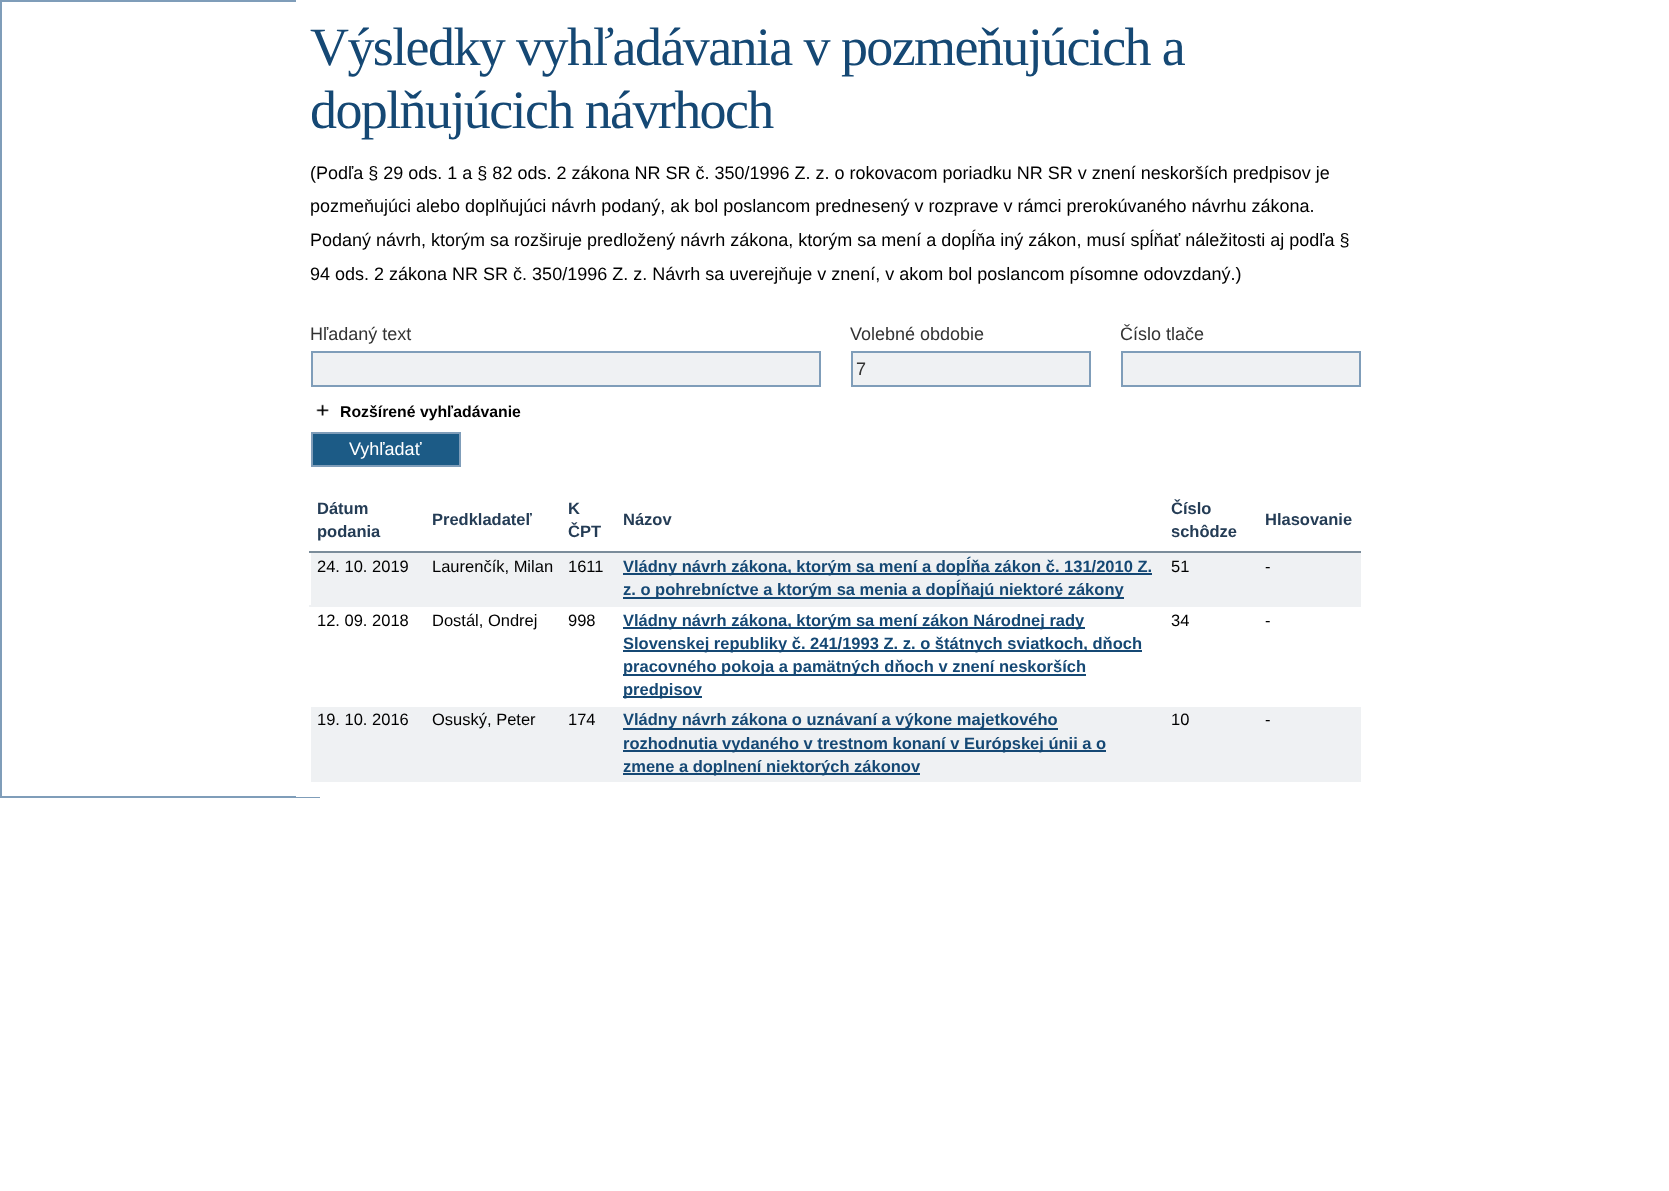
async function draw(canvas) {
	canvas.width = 1669;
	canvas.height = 1191;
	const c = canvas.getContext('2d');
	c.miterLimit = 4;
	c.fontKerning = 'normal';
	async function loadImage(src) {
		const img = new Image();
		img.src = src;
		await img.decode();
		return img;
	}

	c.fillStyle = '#fff';
	c.fillRect(0, 0, 1669, 1191);
	c.strokeStyle = '#7f9db9';
	c.lineWidth = 2;
	c.strokeRect(1, 1, 318, 796);
	c.fillRect(296, 0, 24, 797);
	c.letterSpacing = '-1.6px';
	c.font = '54px Liberation Serif';
	c.fillStyle = '#154874';
	c.fillText('Výsledky vyhľadávania v pozmeňujúcich a', 310, 65);
	c.fillText('doplňujúcich návrhoch', 310, 128);
	c.letterSpacing = '0px';
	c.font = '18px Liberation Sans';
	c.fillStyle = '#000';
	for (const [text, x, y] of [
		['(Podľa § 29 ods. 1 a § 82 ods. 2 zákona NR SR č. 350/1996 Z. z. o rokovacom poriadku NR SR v znení neskorších predpisov je', 310, 179],
		['pozmeňujúci alebo doplňujúci návrh podaný, ak bol poslancom prednesený v rozprave v rámci prerokúvaného návrhu zákona.', 310, 212],
		['Podaný návrh, ktorým sa rozširuje predložený návrh zákona, ktorým sa mení a dopĺňa iný zákon, musí spĺňať náležitosti aj podľa §', 310, 246],
		['94 ods. 2 zákona NR SR č. 350/1996 Z. z. Návrh sa uverejňuje v znení, v akom bol poslancom písomne odovzdaný.)', 310, 280],
	]) {
		c.fillText(text, x, y);
	}
	c.fillStyle = '#333';
	c.fillText('Hľadaný text', 310, 340);
	c.fillStyle = '#eff1f3';
	c.beginPath();
	c.rect(312, 352, 508, 34);
	c.fill();
	c.stroke();
	c.fillStyle = '#333';
	c.fillText('Volebné obdobie', 850, 340);
	c.fillStyle = '#eff1f3';
	c.beginPath();
	c.rect(852, 352, 238, 34);
	c.fill();
	c.stroke();
	c.fillStyle = '#333';
	c.fillText('7', 856, 375);
	c.fillText('Číslo tlače', 1120, 340);
	c.fillStyle = '#eff1f3';
	c.beginPath();
	c.rect(1122, 352, 238, 34);
	c.fill();
	c.stroke();
	c.drawImage(await loadImage('img1.png'), 316, 404, 13, 12);
	c.font = 'bold 15.8px Liberation Sans';
	c.fillStyle = '#000';
	c.fillText('Rozšírené vyhľadávanie', 340, 417);
	c.fillStyle = '#1c5b86';
	c.beginPath();
	c.rect(312, 433, 148, 33);
	c.fill();
	c.stroke();
	c.font = '18px Liberation Sans';
	c.fillStyle = '#fff';
	c.fillText('Vyhľadať', 349, 455);
	c.font = 'bold 16.5px Liberation Sans';
	c.fillStyle = '#243c55';
	for (const [text, x, y] of [
		['Dátum', 317, 514],
		['podania', 317, 537],
		['Predkladateľ', 432, 525],
		['K', 568, 514],
		['ČPT', 568, 537],
		['Názov', 623, 525],
		['Číslo', 1171, 514],
		['schôdze', 1171, 537],
	]) {
		c.fillText(text, x, y);
	}
	c.fillStyle = '#7b8c9a';
	c.fillRect(309, 551, 1052, 2);
	c.fillStyle = '#243c55';
	c.fillText('Hlasovanie', 1265, 525);
	c.fillStyle = '#eff1f3';
	c.fillRect(311, 553, 1050, 52);
	c.font = '16.5px Liberation Sans';
	c.fillStyle = '#000';
	for (const [text, x, y] of [
		['24. 10. 2019', 317, 572],
		['Laurenčík, Milan', 432, 572],
		['1611', 568, 572],
	]) {
		c.fillText(text, x, y);
	}
	c.fillStyle = '#154874';
	c.fillRect(623, 573, 529, 2);
	c.font = 'bold 16.5px Liberation Sans';
	c.fillText('Vládny návrh zákona, ktorým sa mení a dopĺňa zákon č. 131/2010 Z.', 623, 572);
	c.fillRect(623, 597, 501, 2);
	c.fillText('z. o pohrebníctve a ktorým sa menia a dopĺňajú niektoré zákony', 623, 595);
	c.font = '16.5px Liberation Sans';
	c.fillStyle = '#000';
	c.fillText('51', 1171, 572);
	c.fillText('-', 1265, 572);
	c.fillStyle = '#eff1f3';
	c.fillRect(309, 605, 1052, 2);
	c.fillStyle = '#000';
	for (const [text, x, y] of [
		['12. 09. 2018', 317, 626],
		['Dostál, Ondrej', 432, 626],
		['998', 568, 626],
	]) {
		c.fillText(text, x, y);
	}
	c.fillStyle = '#154874';
	c.fillRect(623, 627, 462, 2);
	c.font = 'bold 16.5px Liberation Sans';
	c.fillText('Vládny návrh zákona, ktorým sa mení zákon Národnej rady', 623, 626);
	c.fillRect(623, 650, 519, 2);
	c.fillText('Slovenskej republiky č. 241/1993 Z. z. o štátnych sviatkoch, dňoch', 623, 649);
	c.fillRect(623, 674, 463, 2);
	c.fillText('pracovného pokoja a pamätných dňoch v znení neskorších', 623, 672);
	c.fillRect(623, 696, 79, 2);
	c.fillText('predpisov', 623, 695);
	c.font = '16.5px Liberation Sans';
	c.fillStyle = '#000';
	c.fillText('34', 1171, 626);
	c.fillText('-', 1265, 626);
	c.fillStyle = '#eff1f3';
	c.fillRect(311, 707, 1050, 75);
	c.fillStyle = '#000';
	for (const [text, x, y] of [
		['19. 10. 2016', 317, 725],
		['Osuský, Peter', 432, 725],
		['174', 568, 725],
	]) {
		c.fillText(text, x, y);
	}
	c.fillStyle = '#154874';
	c.fillRect(623, 728, 435, 2);
	c.font = 'bold 16.5px Liberation Sans';
	c.fillText('Vládny návrh zákona o uznávaní a výkone majetkového', 623, 725);
	c.fillRect(623, 750, 483, 2);
	c.fillText('rozhodnutia vydaného v trestnom konaní v Európskej únii a o', 623, 749);
	c.fillRect(623, 773, 297, 2);
	c.fillText('zmene a doplnení niektorých zákonov', 623, 772);
	c.font = '16.5px Liberation Sans';
	c.fillStyle = '#000';
	c.fillText('10', 1171, 725);
	c.fillText('-', 1265, 725);
}

draw(document.querySelector('canvas'));
